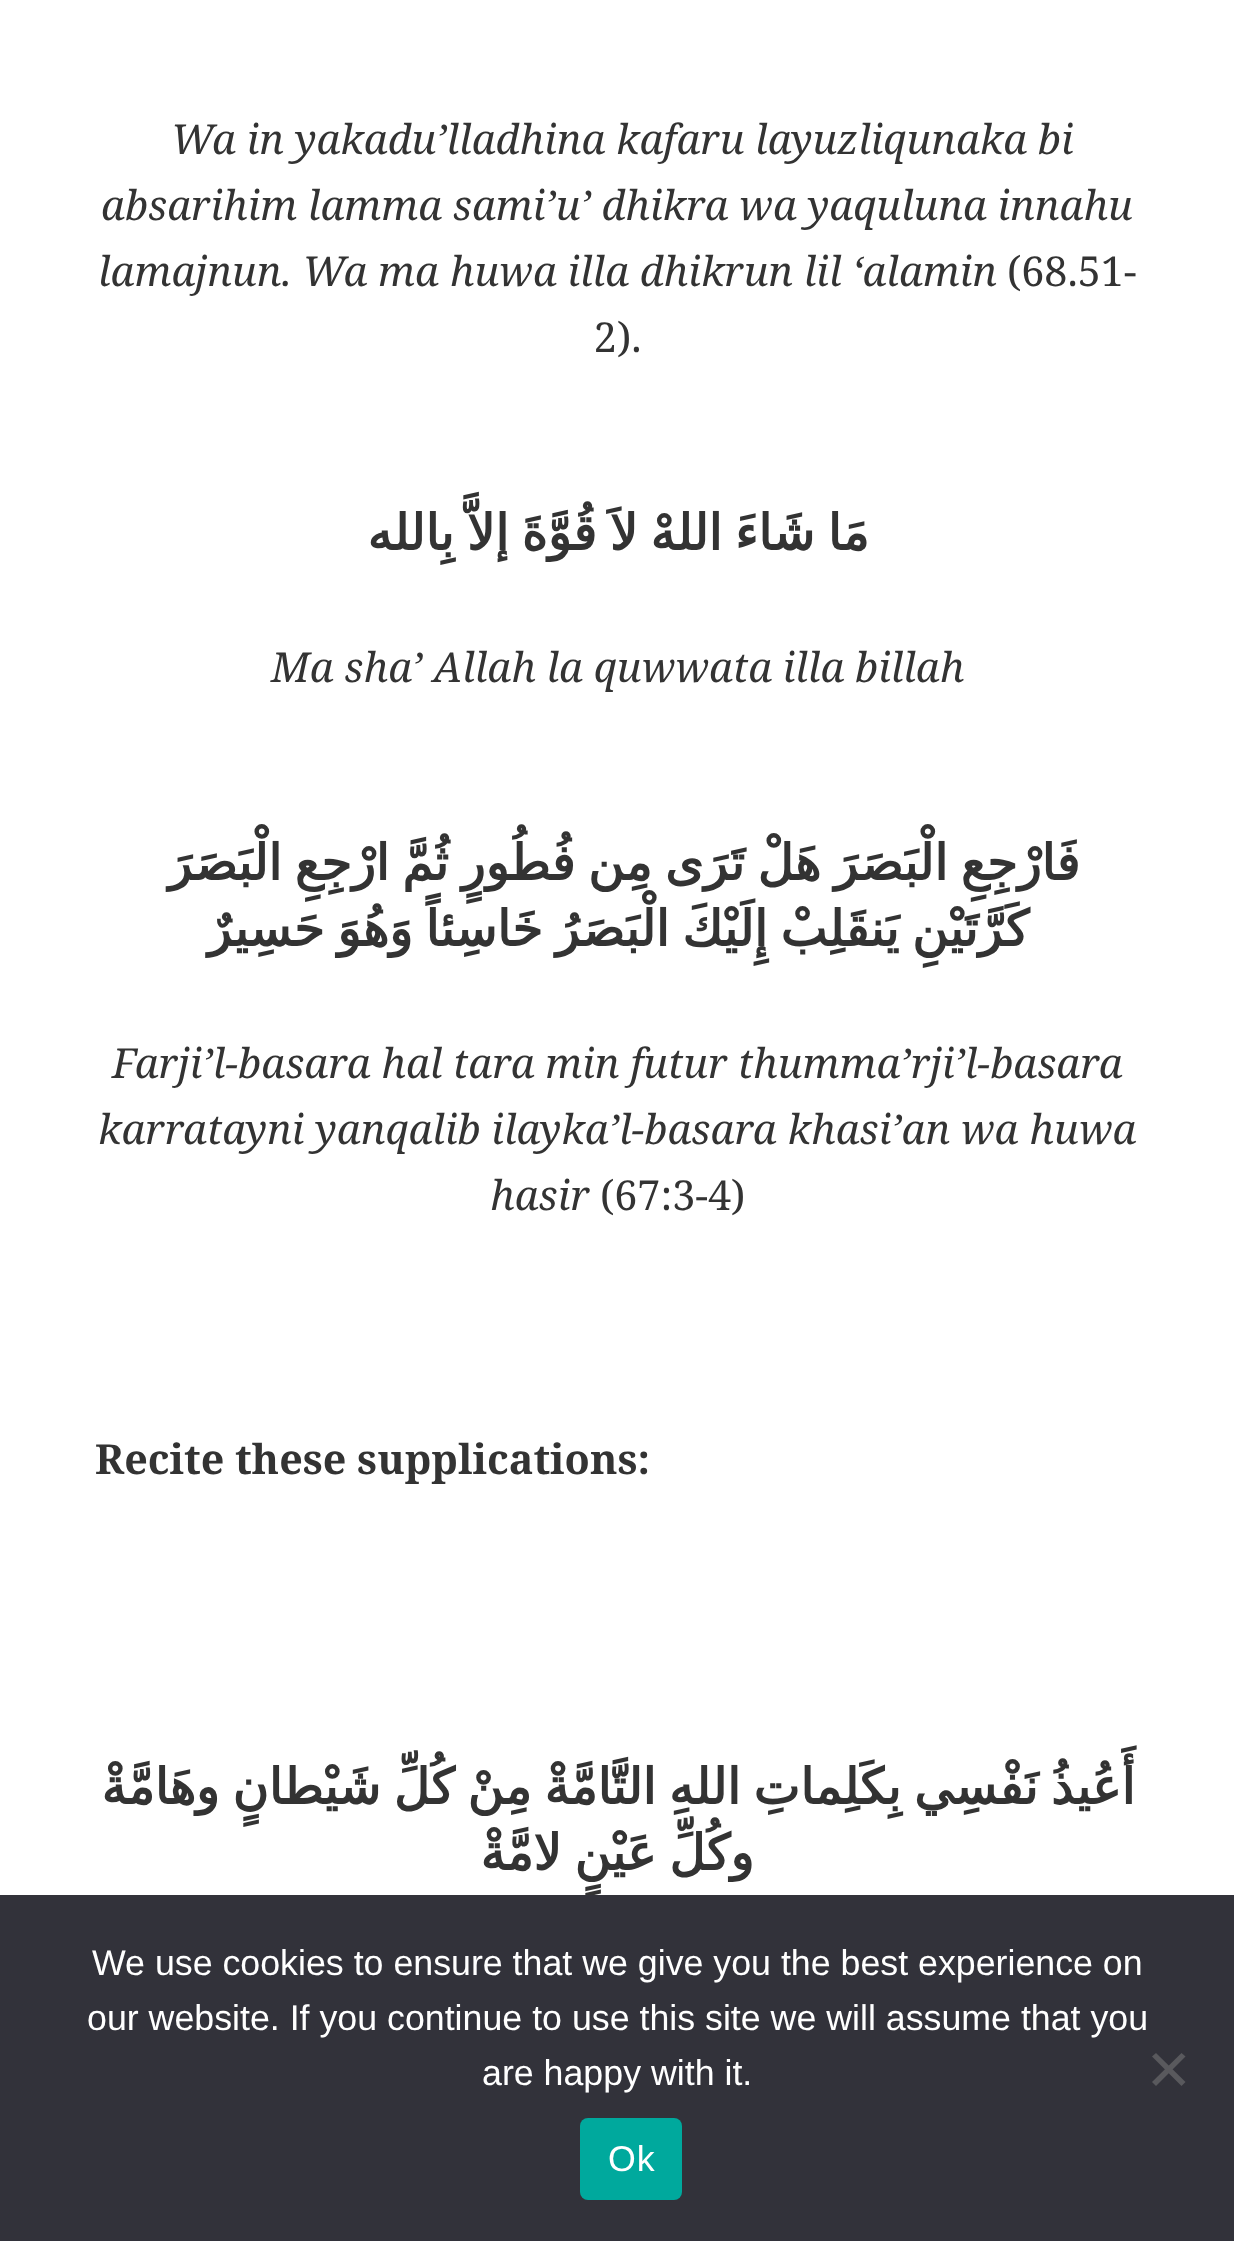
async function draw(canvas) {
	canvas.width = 1234;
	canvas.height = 2241;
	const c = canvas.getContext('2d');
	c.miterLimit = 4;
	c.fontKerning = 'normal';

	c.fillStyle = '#fff';
	c.fillRect(0, 0, 1234, 2241);
	c.font = 'italic 41.25px Noto Serif';
	c.fillStyle = '#333';
	for (const [text, x, y] of [
		['Wa in yakadu’lladhina kafaru layuzliqunaka bi', 171, 154],
		['absarihim lamma sami’u’ dhikra wa yaquluna innahu', 101, 220],
		['lamajnun. Wa ma huwa illa dhikrun lil ‘alamin', 98, 286],
	]) {
		c.fillText(text, x, y);
	}
	c.font = '41.25px Noto Serif';
	c.fillText('(68.51-', 1007, 286);
	c.fillText('2).', 594, 352);
	c.wordSpacing = '-3px';
	c.direction = 'rtl';
	c.font = 'bold 49.5px DejaVu Sans';
	c.fillText('مَا شَاءَ اللهْ لاَ قُوَّةَ إلاَّ بِالله', 869, 550);
	c.wordSpacing = '0px';
	c.direction = 'ltr';
	c.font = 'italic 41.25px Noto Serif';
	c.fillText('Ma sha’ Allah la quwwata illa billah', 271, 682);
	c.wordSpacing = '-3px';
	c.direction = 'rtl';
	c.font = 'bold 49.5px DejaVu Sans';
	c.fillText('فَارْجِعِ الْبَصَرَ هَلْ تَرَى مِن فُطُورٍ ثُمَّ ارْجِعِ الْبَصَرَ', 1080, 880);
	c.fillText('كَرَّتَيْنِ يَنقَلِبْ إِلَيْكَ الْبَصَرُ خَاسِئاً وَهُوَ حَسِيرٌ', 1029, 946);
	c.wordSpacing = '0px';
	c.direction = 'ltr';
	c.font = 'italic 41.25px Noto Serif';
	for (const [text, x, y] of [
		['Farji’l-basara hal tara min futur thumma’rji’l-basara', 112, 1078],
		['karratayni yanqalib ilayka’l-basara khasi’an wa huwa', 98, 1144],
		['hasir', 490, 1210],
	]) {
		c.fillText(text, x, y);
	}
	c.font = '41.25px Noto Serif';
	c.fillText('(67:3-4)', 600, 1210);
	c.font = 'bold 41.25px Noto Serif';
	c.fillText('Recite these supplications:', 95, 1474);
	c.wordSpacing = '-3px';
	c.direction = 'rtl';
	c.font = 'bold 49.5px DejaVu Sans';
	c.fillText('أَعُيذُ نَفْسِي بِكَلِماتِ اللهِ التَّامَّةْ مِنْ كُلِّ شَيْطانٍ وهَامَّةْ', 1135, 1804);
	c.fillText('وكُلِّ عَيْنٍ لامَّةْ', 754, 1870);
	c.fillStyle = '#32323a';
	c.fillRect(0, 1895, 1234, 346);
	c.wordSpacing = '0px';
	c.direction = 'ltr';
	c.font = '35.75px Liberation Sans';
	c.fillStyle = '#fff';
	for (const [text, x, y] of [
		['We use cookies to ensure that we give you the best experience on', 92, 1975],
		['our website. If you continue to use this site we will assume that you', 87, 2030],
		['are happy with it.', 482, 2085],
	]) {
		c.fillText(text, x, y);
	}
	c.fillStyle = '#59595d';
	c.beginPath();
	c.moveTo(1181.5, 2053);
	c.lineTo(1185.5, 2056.5);
	c.lineTo(1156, 2086);
	c.lineTo(1152, 2082);
	c.closePath();
	c.fill();
	c.beginPath();
	c.moveTo(1152, 2056.5);
	c.lineTo(1156, 2053);
	c.lineTo(1185.5, 2082);
	c.lineTo(1181.5, 2086);
	c.closePath();
	c.fill();
	c.fillStyle = '#00a99d';
	c.beginPath();
	c.roundRect(580, 2118, 102, 82, 8);
	c.fill();
	c.letterSpacing = '1px';
	c.fillStyle = '#fff';
	c.fillText('Ok', 608, 2171);
}

draw(document.querySelector('canvas'));
